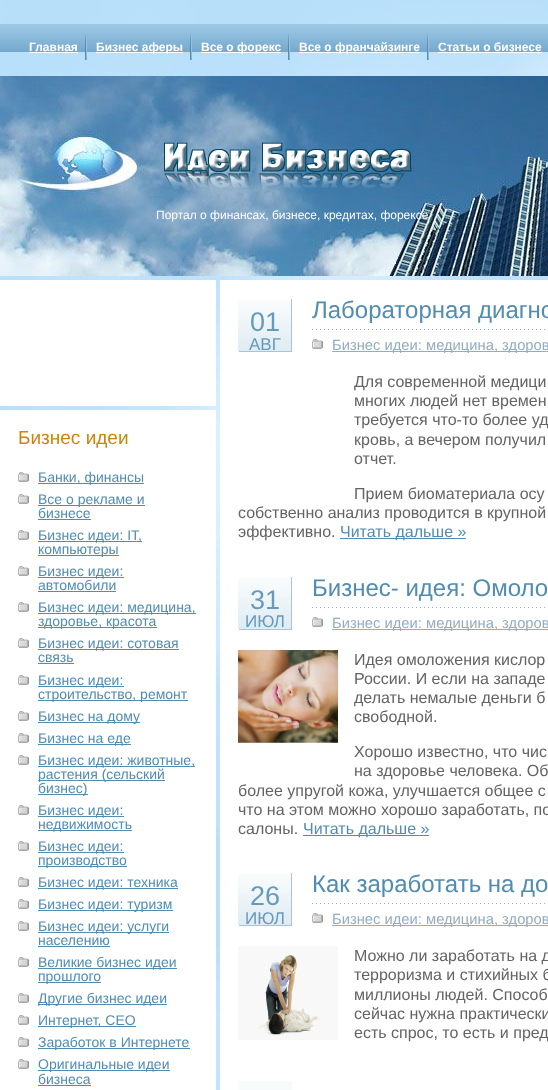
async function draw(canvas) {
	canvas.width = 548;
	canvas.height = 1090;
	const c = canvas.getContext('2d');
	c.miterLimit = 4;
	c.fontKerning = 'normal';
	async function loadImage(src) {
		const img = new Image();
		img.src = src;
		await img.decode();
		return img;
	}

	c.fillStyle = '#fff';
	c.fillRect(0, 0, 548, 1090);
	c.drawImage(await loadImage('img1.png'), 0, 0, 548, 1090);
	c.drawImage(await loadImage('img2.png'), 0, 24, 548, 28);
	c.drawImage(await loadImage('img3.png'), 85, 34, 2, 26);
	c.font = 'bold 12px Liberation Sans';
	c.fillStyle = '#fefefe';
	c.fillText('Главная', 29, 51);
	c.fillRect(29, 52, 49, 1);
	c.drawImage(await loadImage('img3.png'), 190, 34, 2, 26);
	c.fillRect(96, 52, 87, 1);
	c.fillText('Бизнес аферы', 96, 51);
	c.drawImage(await loadImage('img3.png'), 288, 34, 2, 26);
	c.fillRect(201, 52, 80, 1);
	c.fillText('Все о форекс', 201, 51);
	c.drawImage(await loadImage('img3.png'), 427, 34, 2, 26);
	c.fillRect(299, 52, 121, 1);
	c.fillText('Все о франчайзинге', 299, 51);
	c.fillText('Статьи о бизнесе', 438, 51);
	c.fillRect(438, 52, 104, 1);
	c.drawImage(await loadImage('img4.png'), 0, 76, 548, 200);
	c.drawImage(await loadImage('img5.png'), 164, 142, 248, 48);
	c.font = '12px Liberation Sans';
	c.fillText('Портал о финансах, бизнесе, кредитах, форексе', 156, 219);
	c.fillStyle = '#fff';
	c.fillRect(0, 280, 216, 126);
	c.fillRect(0, 410, 216, 680);
	c.font = '19px Liberation Sans';
	c.fillStyle = '#d28307';
	c.fillText('Бизнес идеи', 18, 444);
	c.drawImage(await loadImage('img6.png'), 18, 472, 11, 10);
	c.fillStyle = '#518cb1';
	c.fillRect(38, 483, 106, 1);
	c.font = '14px Liberation Sans';
	c.fillText('Банки, финансы', 38, 482);
	c.drawImage(await loadImage('img6.png'), 18, 494, 11, 10);
	c.fillRect(38, 505, 107, 1);
	c.fillText('Все о рекламе и', 38, 504);
	c.fillText('бизнесе', 38, 518);
	c.fillRect(38, 519, 53, 1);
	c.drawImage(await loadImage('img6.png'), 18, 530, 11, 10);
	c.fillRect(38, 541, 104, 1);
	c.fillText('Бизнес идеи: IT,', 38, 540);
	c.fillRect(38, 555, 81, 1);
	c.fillText('компьютеры', 38, 554);
	c.drawImage(await loadImage('img6.png'), 18, 566, 11, 10);
	c.fillRect(38, 577, 86, 1);
	c.fillText('Бизнес идеи:', 38, 576);
	c.fillText('автомобили', 38, 590);
	c.fillRect(38, 591, 78, 1);
	c.drawImage(await loadImage('img6.png'), 18, 602, 11, 10);
	c.fillRect(38, 613, 158, 1);
	c.fillText('Бизнес идеи: медицина,', 38, 612);
	c.fillRect(38, 627, 119, 1);
	c.fillText('здоровье, красота', 38, 626);
	c.drawImage(await loadImage('img6.png'), 18, 638, 11, 10);
	c.fillRect(38, 649, 141, 1);
	c.fillText('Бизнес идеи: сотовая', 38, 648);
	c.fillText('связь', 38, 662);
	c.fillRect(38, 663, 36, 1);
	c.drawImage(await loadImage('img6.png'), 18, 675, 11, 10);
	c.fillRect(38, 686, 86, 1);
	c.fillText('Бизнес идеи:', 38, 685);
	c.fillRect(38, 700, 150, 1);
	c.fillText('строительство, ремонт', 38, 699);
	c.drawImage(await loadImage('img6.png'), 18, 711, 11, 10);
	c.fillRect(38, 722, 102, 1);
	c.fillText('Бизнес на дому', 38, 721);
	c.drawImage(await loadImage('img6.png'), 18, 733, 11, 10);
	c.fillRect(38, 744, 93, 1);
	c.fillText('Бизнес на еде', 38, 743);
	c.drawImage(await loadImage('img6.png'), 18, 755, 11, 10);
	c.fillRect(38, 766, 157, 1);
	c.fillText('Бизнес идеи: животные,', 38, 765);
	c.fillRect(38, 780, 127, 1);
	c.fillText('растения (сельский', 38, 779);
	c.fillRect(38, 794, 50, 1);
	c.fillText('бизнес)', 38, 793);
	c.drawImage(await loadImage('img6.png'), 18, 805, 11, 10);
	c.fillRect(38, 816, 86, 1);
	c.fillText('Бизнес идеи:', 38, 815);
	c.fillRect(38, 830, 94, 1);
	c.fillText('недвижимость', 38, 829);
	c.drawImage(await loadImage('img6.png'), 18, 841, 11, 10);
	c.fillRect(38, 852, 86, 1);
	c.fillText('Бизнес идеи:', 38, 851);
	c.fillRect(38, 866, 89, 1);
	c.fillText('производство', 38, 865);
	c.drawImage(await loadImage('img6.png'), 18, 877, 11, 10);
	c.fillRect(38, 888, 140, 1);
	c.fillText('Бизнес идеи: техника', 38, 887);
	c.drawImage(await loadImage('img6.png'), 18, 899, 11, 10);
	c.fillRect(38, 910, 135, 1);
	c.fillText('Бизнес идеи: туризм', 38, 909);
	c.drawImage(await loadImage('img6.png'), 18, 921, 11, 10);
	c.fillRect(38, 932, 131, 1);
	c.fillText('Бизнес идеи: услуги', 38, 931);
	c.fillText('населению', 38, 945);
	c.fillRect(38, 946, 72, 1);
	c.drawImage(await loadImage('img6.png'), 18, 957, 11, 10);
	c.fillRect(38, 968, 139, 1);
	c.fillText('Великие бизнес идеи', 38, 967);
	c.fillRect(38, 982, 63, 1);
	c.fillText('прошлого', 38, 981);
	c.drawImage(await loadImage('img6.png'), 18, 993, 11, 10);
	c.fillRect(38, 1004, 129, 1);
	c.fillText('Другие бизнес идеи', 38, 1003);
	c.drawImage(await loadImage('img6.png'), 18, 1015, 11, 10);
	c.fillRect(38, 1026, 98, 1);
	c.fillText('Интернет, СЕО', 38, 1025);
	c.drawImage(await loadImage('img6.png'), 18, 1037, 11, 10);
	c.fillRect(38, 1048, 152, 1);
	c.fillText('Заработок в Интернете', 38, 1047);
	c.drawImage(await loadImage('img6.png'), 18, 1059, 11, 10);
	c.fillRect(38, 1070, 132, 1);
	c.fillText('Оригинальные идеи', 38, 1069);
	c.fillText('бизнеса', 38, 1084);
	c.fillRect(38, 1085, 53, 1);
	c.fillStyle = '#fff';
	c.fillRect(220, 280, 328, 810);
	c.drawImage(await loadImage('img7.png'), 238, 299, 54, 53);
	c.font = '27px Liberation Sans';
	c.fillStyle = '#669abb';
	c.fillText('01', 250, 331);
	c.font = '17px Liberation Sans';
	c.fillText('АВГ', 249, 350);
	c.drawImage(await loadImage('img8.png'), 312, 329, 233, 1);
	c.font = '24px Liberation Sans';
	c.fillStyle = '#518cb1';
	c.fillText('Лабораторная диагно', 312, 318);
	c.drawImage(await loadImage('img6.png'), 312, 339, 11, 10);
	c.fillStyle = '#91adc1';
	c.fillRect(332, 351, 216, 1);
	c.font = '14.75px Liberation Sans';
	c.fillText('Бизнес идеи: медицина, здоров', 332, 350);
	c.font = '16px Liberation Sans';
	c.fillStyle = '#646464';
	for (const [text, x, y] of [
		['Для современной медици', 354, 387],
		['многих людей нет времен', 354, 406],
		['требуется что-то более уд', 354, 425],
		['кровь, а вечером получил', 354, 445],
		['отчет.', 354, 464],
		['Прием биоматериала осу', 354, 499],
		['собственно анализ проводится в крупной', 238, 518],
		['эффективно.', 238, 537],
	]) {
		c.fillText(text, x, y);
	}
	c.fillStyle = '#518cb1';
	c.fillRect(340, 538, 126, 1);
	c.fillText('Читать дальше »', 340, 537);
	c.drawImage(await loadImage('img7.png'), 238, 577, 54, 53);
	c.font = '27px Liberation Sans';
	c.fillStyle = '#669abb';
	c.fillText('31', 250, 609);
	c.font = '17px Liberation Sans';
	c.fillText('ИЮЛ', 245, 627);
	c.drawImage(await loadImage('img8.png'), 312, 607, 233, 1);
	c.font = '24px Liberation Sans';
	c.fillStyle = '#518cb1';
	c.fillText('Бизнес- идея: Омоло', 312, 596);
	c.drawImage(await loadImage('img6.png'), 312, 617, 11, 10);
	c.fillStyle = '#91adc1';
	c.fillRect(332, 629, 216, 1);
	c.font = '14.75px Liberation Sans';
	c.fillText('Бизнес идеи: медицина, здоров', 332, 628);
	c.drawImage(await loadImage('img9.png'), 238, 650, 100, 93);
	c.font = '16px Liberation Sans';
	c.fillStyle = '#646464';
	for (const [text, x, y] of [
		['Идея омоложения кислор', 354, 665],
		['России. И если на западе', 354, 684],
		['делать немалые деньги б', 354, 703],
		['свободной.', 354, 722],
		['Хорошо известно, что чис', 354, 757],
		['на здоровье человека. Об', 354, 776],
		['более упругой кожа, улучшается общее с', 238, 796],
		['что на этом можно хорошо заработать, по', 238, 815],
		['салоны.', 238, 834],
	]) {
		c.fillText(text, x, y);
	}
	c.fillStyle = '#518cb1';
	c.fillRect(303, 835, 126, 1);
	c.fillText('Читать дальше »', 303, 834);
	c.drawImage(await loadImage('img7.png'), 238, 873, 54, 53);
	c.font = '27px Liberation Sans';
	c.fillStyle = '#669abb';
	c.fillText('26', 250, 905);
	c.font = '17px Liberation Sans';
	c.fillText('ИЮЛ', 245, 924);
	c.drawImage(await loadImage('img8.png'), 312, 903, 233, 1);
	c.font = '24px Liberation Sans';
	c.fillStyle = '#518cb1';
	c.fillText('Как заработать на до', 312, 892);
	c.drawImage(await loadImage('img6.png'), 312, 913, 11, 10);
	c.fillStyle = '#91adc1';
	c.fillRect(332, 925, 216, 1);
	c.font = '14.75px Liberation Sans';
	c.fillText('Бизнес идеи: медицина, здоров', 332, 924);
	c.drawImage(await loadImage('img10.png'), 238, 946, 100, 94);
	c.font = '16px Liberation Sans';
	c.fillStyle = '#646464';
	for (const [text, x, y] of [
		['Можно ли заработать на д', 354, 961],
		['терроризма и стихийных б', 354, 980],
		['миллионы людей. Способ', 354, 1000],
		['сейчас нужна практически', 354, 1019],
		['есть спрос, то есть и пред', 354, 1038],
	]) {
		c.fillText(text, x, y);
	}
	c.fillStyle = '#f8fbfc';
	c.fillRect(238, 1081, 54, 9);
}

draw(document.querySelector('canvas'));
